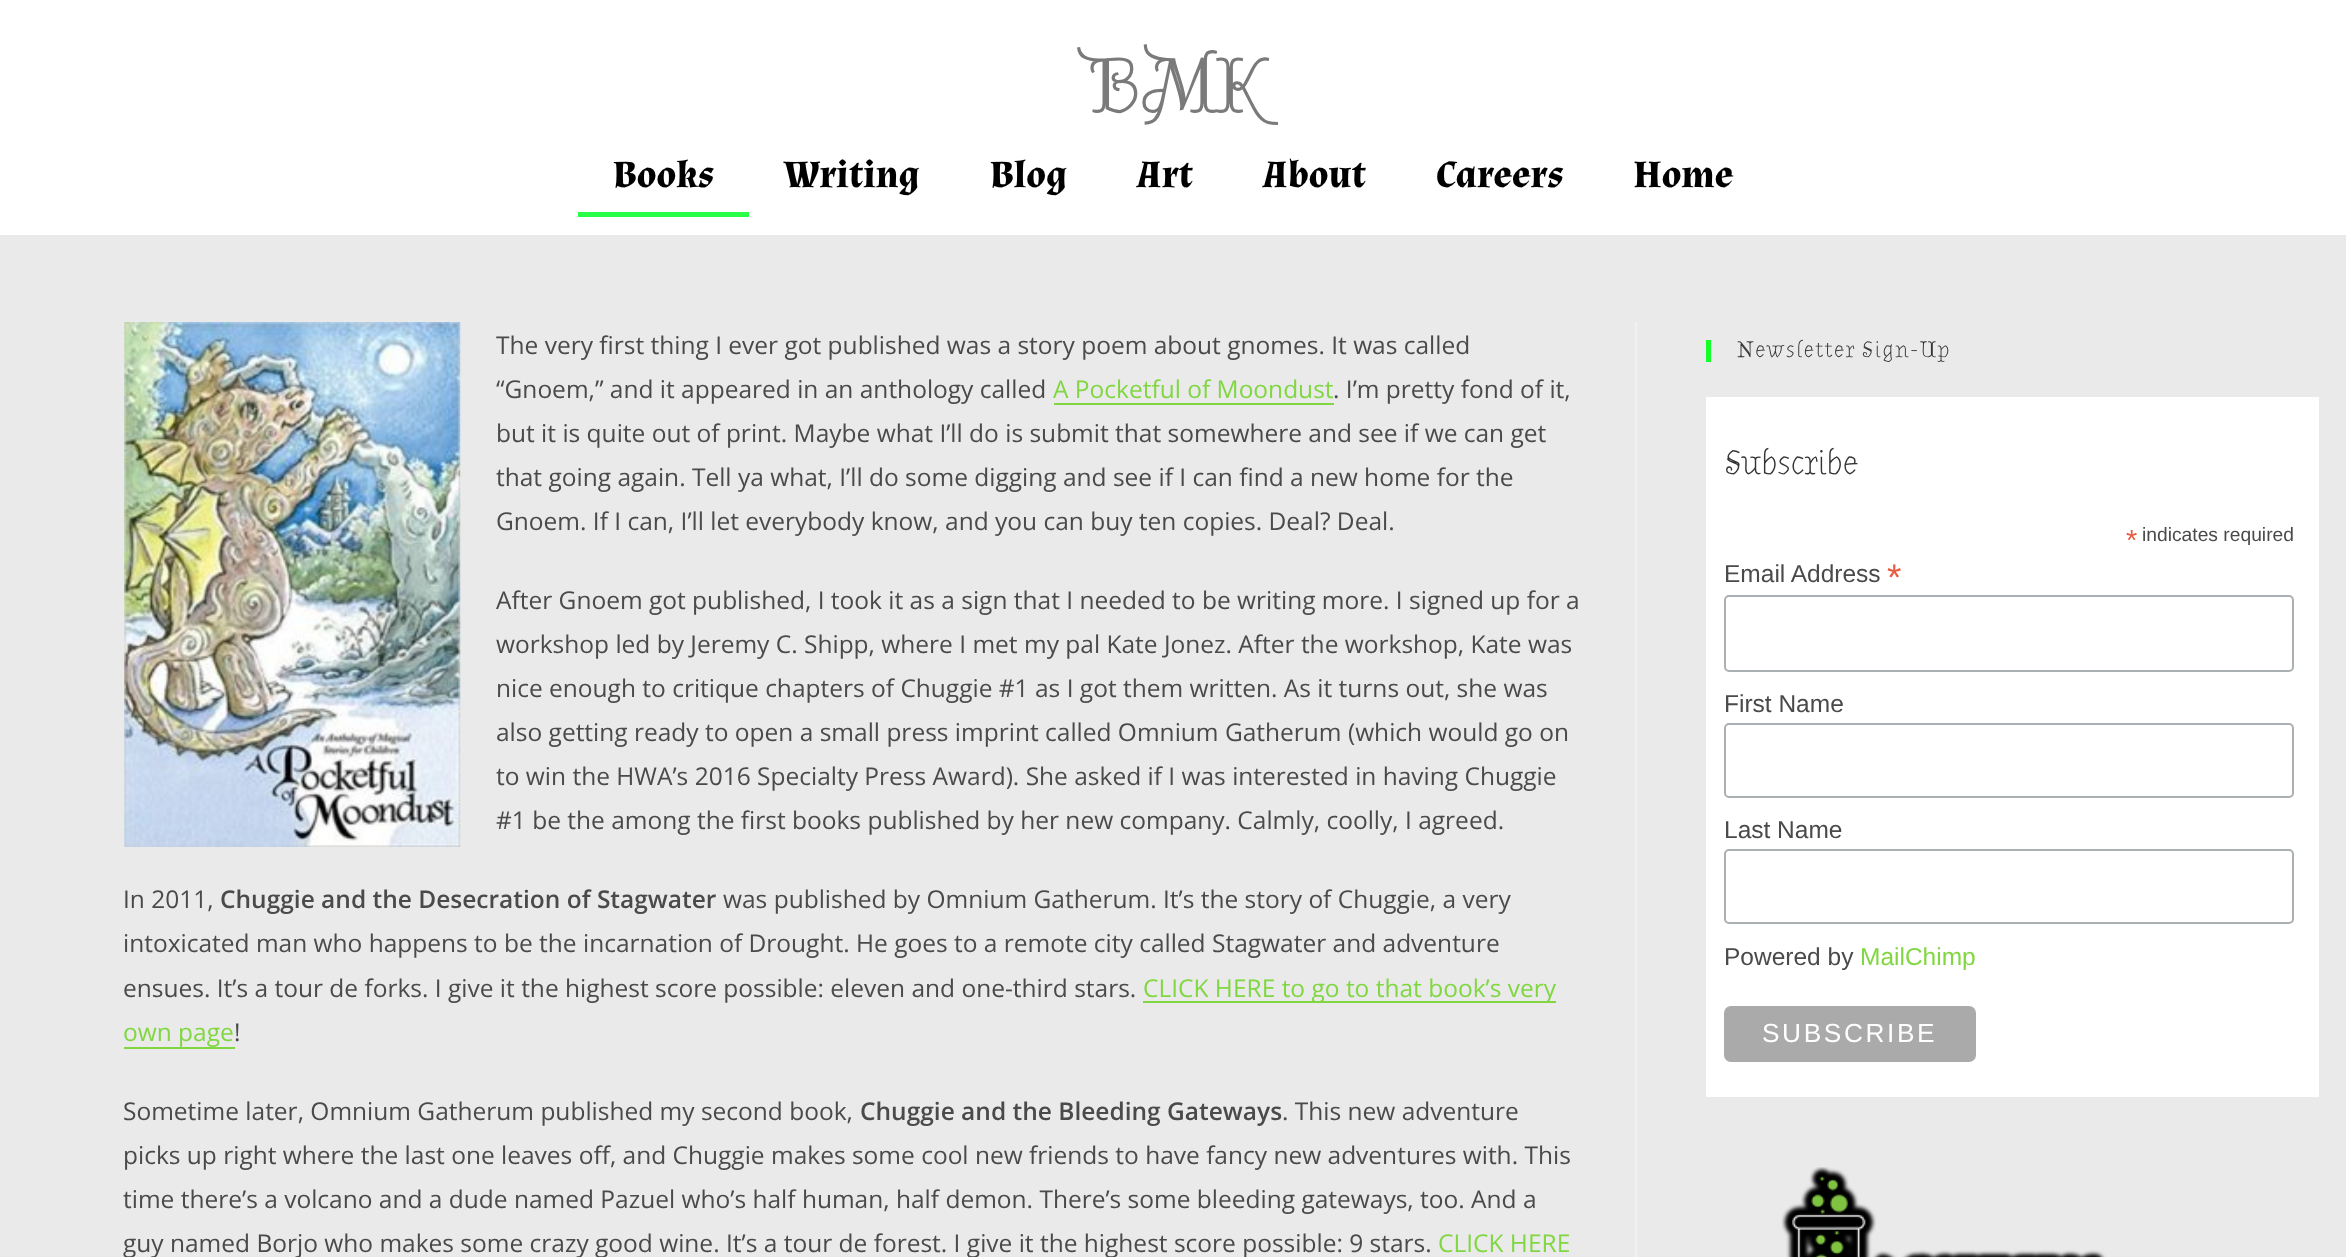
async function draw(canvas) {
	canvas.width = 2346;
	canvas.height = 1257;
	const c = canvas.getContext('2d');
	c.miterLimit = 4;
	c.fontKerning = 'normal';
	async function loadImage(src) {
		const img = new Image();
		img.src = src;
		await img.decode();
		return img;
	}

	c.fillStyle = '#eaeaeb';
	c.fillRect(0, 0, 2346, 1257);
	c.fillStyle = '#fff';
	c.fillRect(0, 0, 2346, 235);
	c.font = 'bold 79px Almendra Display';
	c.fillStyle = '#7a7a7a';
	c.fillText('BMK', 1085, 112);
	c.font = 'bold 38.5px Almendra';
	c.fillStyle = '#000';
	c.fillText('Books', 613, 187);
	c.fillStyle = '#28ff46';
	c.fillRect(578, 212, 171, 5);
	c.fillStyle = '#000';
	for (const [text, x, y] of [
		['Writing', 784, 187],
		['Blog', 990, 187],
		['Art', 1137, 187],
		['About', 1263, 187],
		['Careers', 1436, 187],
		['Home', 1633, 187],
	]) {
		c.fillText(text, x, y);
	}
	c.fillStyle = '#f1f1f1';
	c.fillRect(1635, 322, 2, 935);
	c.drawImage(await loadImage('img1.png'), 124, 322, 337, 525);
	c.font = '24.5px Open Sans';
	c.fillStyle = '#4a4a4a';
	c.fillText('The very first thing I ever got published was a story poem about gnomes. It was called', 496, 354);
	c.fillText('“Gnoem,” and it appeared in an anthology called', 496, 398);
	c.fillStyle = '#81d742';
	c.fillText('A Pocketful of Moondust', 1053, 398);
	c.fillRect(1054, 403, 280, 2);
	c.fillStyle = '#4a4a4a';
	for (const [text, x, y] of [
		['. I’m pretty fond of it,', 1333, 398],
		['but it is quite out of print. Maybe what I’ll do is submit that somewhere and see if we can get', 496, 442],
		['that going again. Tell ya what, I’ll do some digging and see if I can find a new home for the', 496, 486],
		['Gnoem. If I can, I’ll let everybody know, and you can buy ten copies. Deal? Deal.', 496, 530],
		['After Gnoem got published, I took it as a sign that I needed to be writing more. I signed up for a', 496, 609],
		['workshop led by Jeremy C. Shipp, where I met my pal Kate Jonez. After the workshop, Kate was', 496, 653],
		['nice enough to critique chapters of Chuggie #1 as I got them written. As it turns out, she was', 496, 697],
		['also getting ready to open a small press imprint called Omnium Gatherum (which would go on', 496, 741],
		['to win the HWA’s 2016 Specialty Press Award). She asked if I was interested in having Chuggie', 496, 785],
		['#1 be the among the first books published by her new company. Calmly, coolly, I agreed.', 496, 829],
		['In 2011,', 123, 908],
	]) {
		c.fillText(text, x, y);
	}
	c.font = '600 24.5px Open Sans';
	c.fillText('Chuggie and the Desecration of Stagwater', 220, 908);
	c.font = '24.5px Open Sans';
	for (const [text, x, y] of [
		['was published by Omnium Gatherum. It’s the story of Chuggie, a very', 723, 908],
		['intoxicated man who happens to be the incarnation of Drought. He goes to a remote city called Stagwater and adventure', 123, 952],
		['ensues. It’s a tour de forks. I give it the highest score possible: eleven and one-third stars.', 123, 997],
	]) {
		c.fillText(text, x, y);
	}
	c.fillStyle = '#81d742';
	c.fillRect(1143, 1001, 413, 2);
	c.fillText('CLICK HERE to go to that book’s very', 1143, 997);
	c.fillText('own page', 123, 1041);
	c.fillRect(124, 1047, 111, 2);
	c.fillStyle = '#4a4a4a';
	c.fillText('!', 234, 1041);
	c.fillText('Sometime later, Omnium Gatherum published my second book,', 123, 1120);
	c.font = '600 24.5px Open Sans';
	c.fillText('Chuggie and the Bleeding Gateways', 860, 1120);
	c.font = '24.5px Open Sans';
	for (const [text, x, y] of [
		['. This new adventure', 1282, 1120],
		['picks up right where the last one leaves off, and Chuggie makes some cool new friends to have fancy new adventures with. This', 123, 1164],
		['time there’s a volcano and a dude named Pazuel who’s half human, half demon. There’s some bleeding gateways, too. And a', 123, 1208],
		['guy named Borjo who makes some crazy good wine. It’s a tour de forest. I give it the highest score possible: 9 stars.', 123, 1252],
	]) {
		c.fillText(text, x, y);
	}
	c.fillStyle = '#81d742';
	c.fillText('CLICK HERE', 1438, 1252);
	c.fillStyle = '#14ff27';
	c.fillRect(1706, 340, 5, 22);
	c.letterSpacing = '1.75px';
	c.font = 'bold 22.75px Almendra Display';
	c.fillStyle = '#333';
	c.fillText('Newsletter Sign-Up', 1737, 357);
	c.fillStyle = '#fff';
	c.fillRect(1706, 397, 613, 700);
	c.letterSpacing = '0px';
	c.font = 'bold 34.5px Almendra Display';
	c.fillStyle = '#333';
	c.fillText('Subscribe', 1724, 474);
	c.font = '29px Liberation Sans';
	c.fillStyle = '#e85c41';
	c.fillText('*', 2126, 550);
	c.font = '19.25px Liberation Sans';
	c.fillStyle = '#4a4a4a';
	c.fillText('indicates required', 2142, 541);
	c.font = '24.5px Liberation Sans';
	c.fillText('Email Address', 1724, 582);
	c.font = '37px Liberation Sans';
	c.fillStyle = '#e85c41';
	c.fillText('*', 1887, 590);
	c.beginPath();
	c.roundRect(1725, 596, 568, 75, 4);
	c.strokeStyle = '#abb0b2';
	c.lineWidth = 2;
	c.stroke();
	c.font = '24.5px Liberation Sans';
	c.fillStyle = '#4a4a4a';
	c.fillText('First Name', 1724, 712);
	c.beginPath();
	c.roundRect(1725, 724, 568, 73, 4);
	c.stroke();
	c.fillText('Last Name', 1724, 838);
	c.beginPath();
	c.roundRect(1725, 850, 568, 73, 4);
	c.stroke();
	c.fillText('Powered by', 1724, 965);
	c.fillStyle = '#81d742';
	c.fillText('MailChimp', 1860, 965);
	c.fillStyle = '#aaa';
	c.beginPath();
	c.roundRect(1724, 1006, 252, 56, 7);
	c.fill();
	c.letterSpacing = '2.6px';
	c.font = '26.25px Liberation Sans';
	c.fillStyle = '#fff';
	c.fillText('SUBSCRIBE', 1762, 1042);
	c.drawImage(await loadImage('img2.png'), 1781, 1167, 325, 90);
}

draw(document.querySelector('canvas'));
